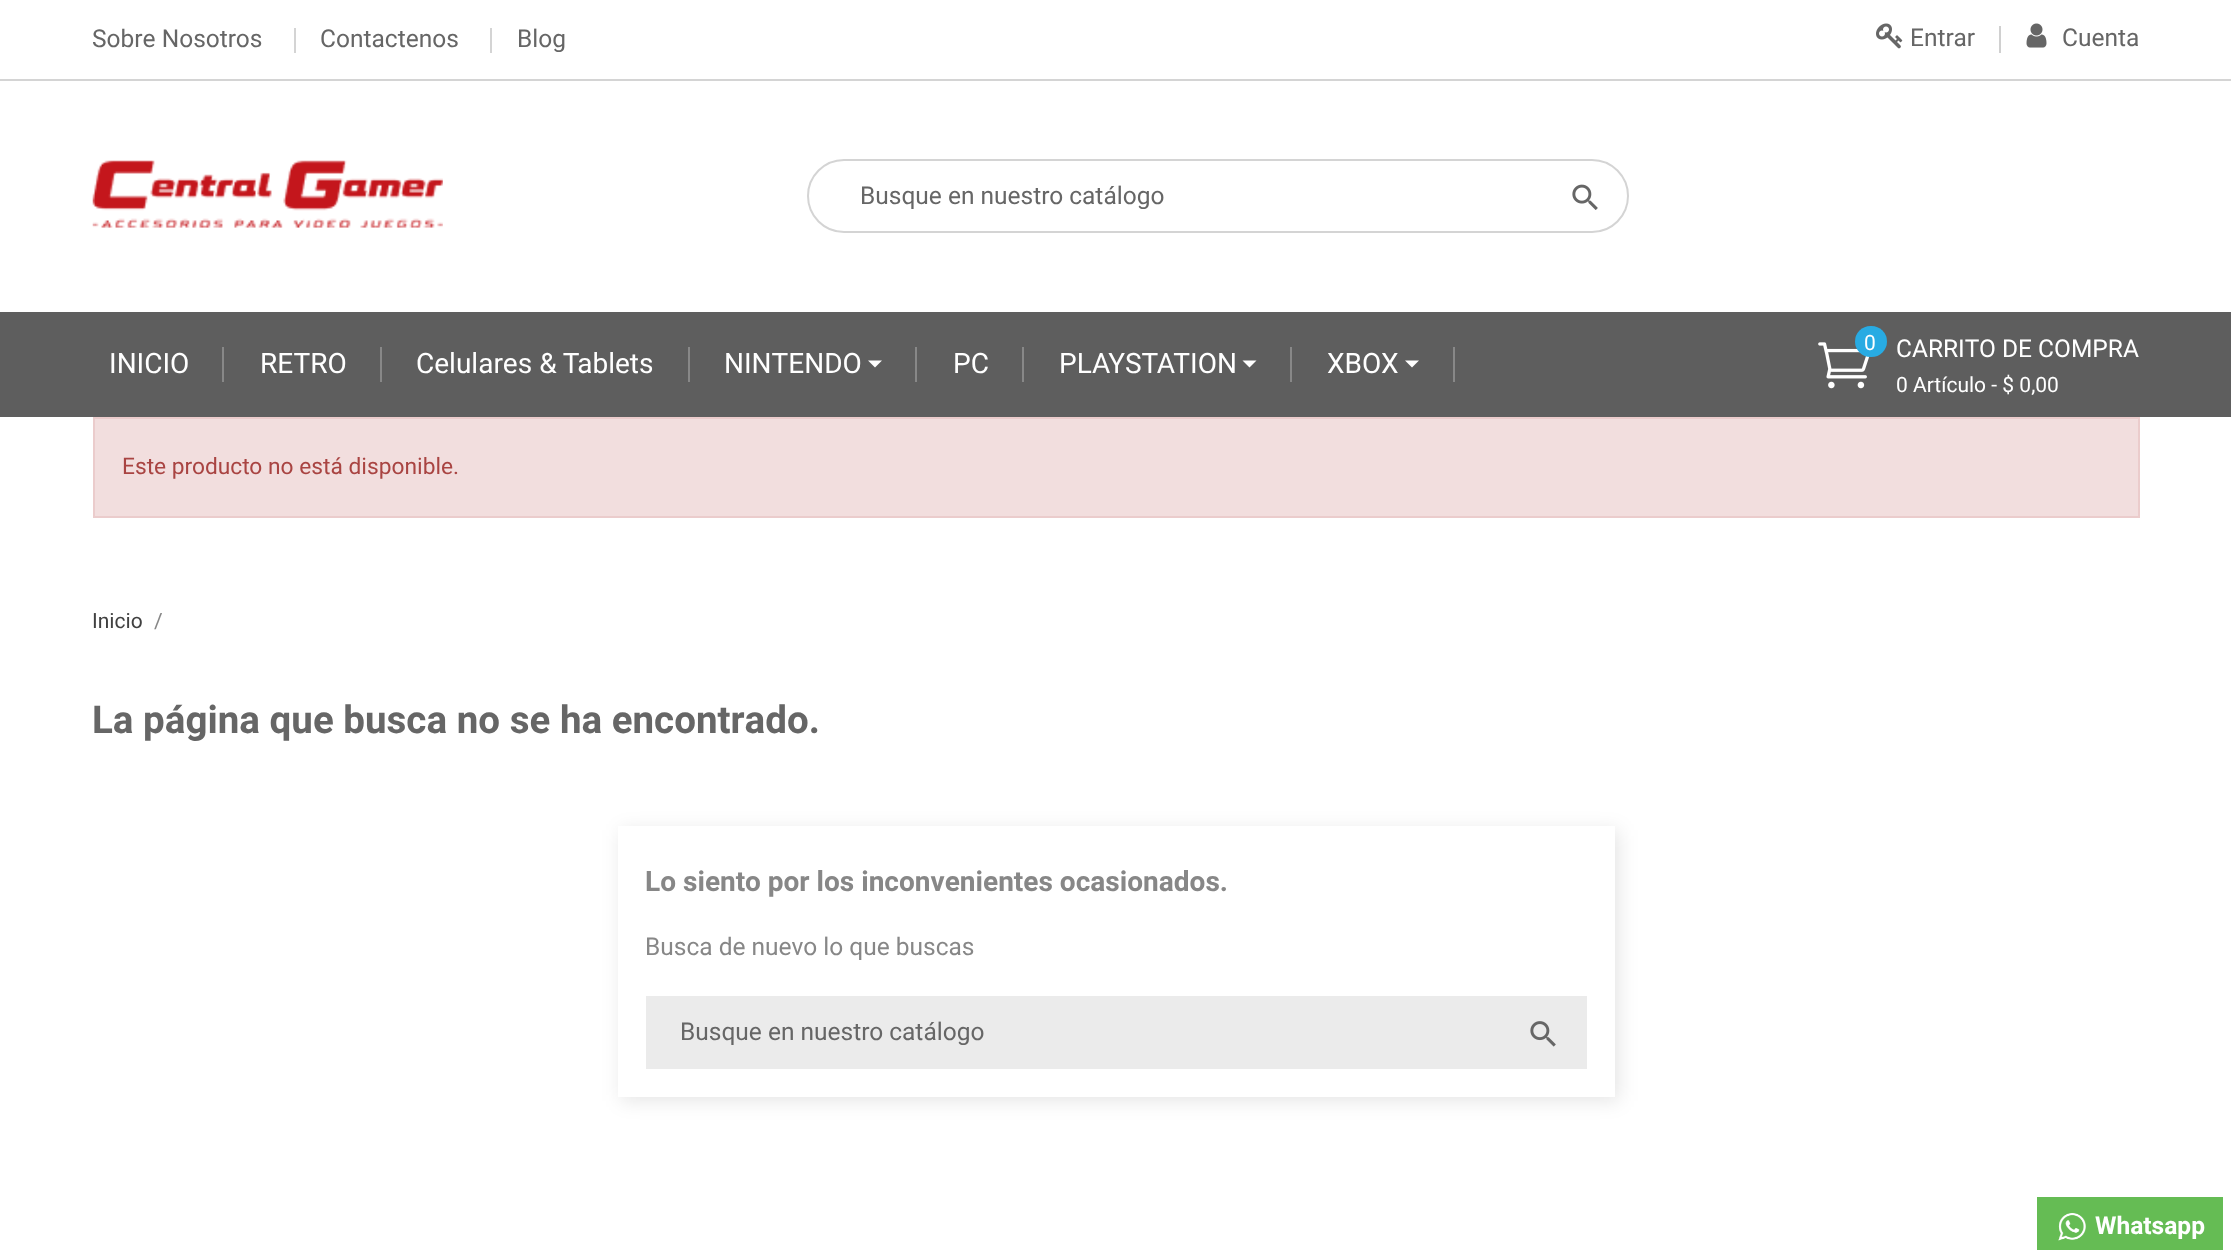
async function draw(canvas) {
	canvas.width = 2231;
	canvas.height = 1258;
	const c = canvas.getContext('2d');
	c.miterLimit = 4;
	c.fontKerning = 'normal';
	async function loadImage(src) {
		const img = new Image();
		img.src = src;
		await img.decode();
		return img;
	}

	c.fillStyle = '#fff';
	c.fillRect(0, 0, 2231, 1258);
	c.fillStyle = '#d4d4d4';
	c.fillRect(0, 79, 2231, 2);
	c.fillRect(294, 28, 2, 25);
	c.font = '24.5px Heebo';
	c.fillStyle = '#666';
	c.fillText('Sobre Nosotros', 92, 47);
	c.fillStyle = '#d4d4d4';
	c.fillRect(490, 28, 2, 25);
	c.fillStyle = '#666';
	c.fillText('Contactenos', 320, 47);
	c.fillText('Blog', 517, 47);
	c.drawImage(await loadImage('img1.png'), 1876, 23, 27, 26);
	c.fillText('Entrar', 1910, 46);
	c.fillStyle = '#d0d0d0';
	c.fillRect(1999, 26, 2, 27);
	c.drawImage(await loadImage('img2.png'), 2026, 23, 21, 25);
	c.fillStyle = '#666';
	c.fillText('Cuenta', 2062, 46);
	c.fillStyle = '#5e5e5e';
	c.fillRect(0, 312, 2231, 105);
	c.font = '28px Heebo';
	c.fillStyle = '#fff';
	c.fillText('INICIO', 109, 373);
	c.fillStyle = '#888';
	c.fillRect(222, 347, 2, 35);
	c.fillStyle = '#fff';
	c.fillText('RETRO', 260, 373);
	c.fillStyle = '#888';
	c.fillRect(380, 347, 2, 35);
	c.fillStyle = '#fff';
	c.fillText('Celulares & Tablets', 416, 373);
	c.fillStyle = '#888';
	c.fillRect(688, 347, 2, 35);
	c.fillStyle = '#fff';
	c.fillText('NINTENDO', 724, 373);
	c.beginPath();
	c.moveTo(868, 360.5);
	c.lineTo(882, 360.5);
	c.lineTo(875, 367.5);
	c.closePath();
	c.fill();
	c.fillStyle = '#888';
	c.fillRect(915, 347, 2, 35);
	c.fillStyle = '#fff';
	c.fillText('PC', 953, 373);
	c.fillStyle = '#888';
	c.fillRect(1022, 347, 2, 35);
	c.fillStyle = '#fff';
	c.fillText('PLAYSTATION', 1059, 373);
	c.beginPath();
	c.moveTo(1242.5, 360.5);
	c.lineTo(1256.5, 360.5);
	c.lineTo(1249.5, 367.5);
	c.closePath();
	c.fill();
	c.fillStyle = '#888';
	c.fillRect(1290, 347, 2, 35);
	c.fillStyle = '#fff';
	c.fillText('XBOX', 1327, 373);
	c.beginPath();
	c.moveTo(1405, 360.5);
	c.lineTo(1419, 360.5);
	c.lineTo(1412, 367.5);
	c.closePath();
	c.fill();
	c.fillStyle = '#888';
	c.fillRect(1453, 347, 2, 35);
	c.drawImage(await loadImage('img3.png'), 92, 160, 351, 68);
	c.beginPath();
	c.roundRect(808, 160, 820, 72, 36);
	c.strokeStyle = '#d4d4d4';
	c.lineWidth = 2;
	c.stroke();
	c.font = '24.5px Heebo';
	c.fillStyle = '#666';
	c.fillText('Busque en nuestro catálogo', 860, 204);
	c.drawImage(await loadImage('img4.png'), 1572, 184, 26, 26);
	c.drawImage(await loadImage('img5.png'), 1818, 342, 52, 47);
	c.fillStyle = '#28abe3';
	c.beginPath();
	c.roundRect(1855, 326, 32, 31, 15.5);
	c.fill();
	c.font = '21px Heebo';
	c.fillStyle = '#fff';
	c.fillText('0', 1864, 350);
	c.font = '24.5px Heebo';
	c.fillText('CARRITO DE COMPRA', 1896, 357);
	c.font = '21px Heebo';
	c.fillText('0 Artículo - $ 0,00', 1896, 392);
	c.fillStyle = '#f2dede';
	c.beginPath();
	c.rect(94, 418, 2045, 99);
	c.fill();
	c.strokeStyle = '#ebcccc';
	c.stroke();
	c.font = '22.75px Heebo';
	c.fillStyle = '#a94442';
	c.fillText('Este producto no está disponible.', 122, 474);
	c.font = '21px Heebo';
	c.fillStyle = '#414141';
	c.fillText('Inicio', 92, 628);
	c.fillStyle = '#878787';
	c.fillText('/', 154, 628);
	c.font = 'bold 38.5px Heebo';
	c.fillStyle = '#666';
	c.fillText('La página que busca no se ha encontrado.', 92, 733);
	c.save();
	c.beginPath();
	c.moveTo(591, 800);
	c.lineTo(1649, 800);
	c.lineTo(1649, 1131);
	c.lineTo(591, 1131);
	c.closePath();
	c.moveTo(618, 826);
	c.lineTo(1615, 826);
	c.lineTo(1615, 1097);
	c.lineTo(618, 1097);
	c.closePath();
	c.clip('evenodd');
	c.fillStyle = '#0000001a';
	c.filter = 'blur(9.5px)';
	c.beginPath();
	c.rect(621, 830, 998, 271);
	c.fill();
	c.filter = 'none';
	c.restore();
	c.font = 'bold 28px Heebo';
	c.fillStyle = '#878787';
	c.fillText('Lo siento por los inconvenientes ocasionados.', 645, 891);
	c.font = '24.5px Heebo';
	c.fillText('Busca de nuevo lo que buscas', 645, 955);
	c.fillStyle = '#ebebeb';
	c.fillRect(646, 996, 941, 73);
	c.fillStyle = '#666';
	c.fillText('Busque en nuestro catálogo', 680, 1040);
	c.drawImage(await loadImage('img6.png'), 1530, 1021, 26, 26);
	c.fillStyle = '#65bc54';
	c.fillRect(2037, 1197, 186, 53);
	c.drawImage(await loadImage('img7.png'), 2058, 1213, 28, 28);
	c.font = 'bold 24.5px Heebo';
	c.fillStyle = '#fff';
	c.fillText('Whatsapp', 2095, 1234);
}

draw(document.querySelector('canvas'));
